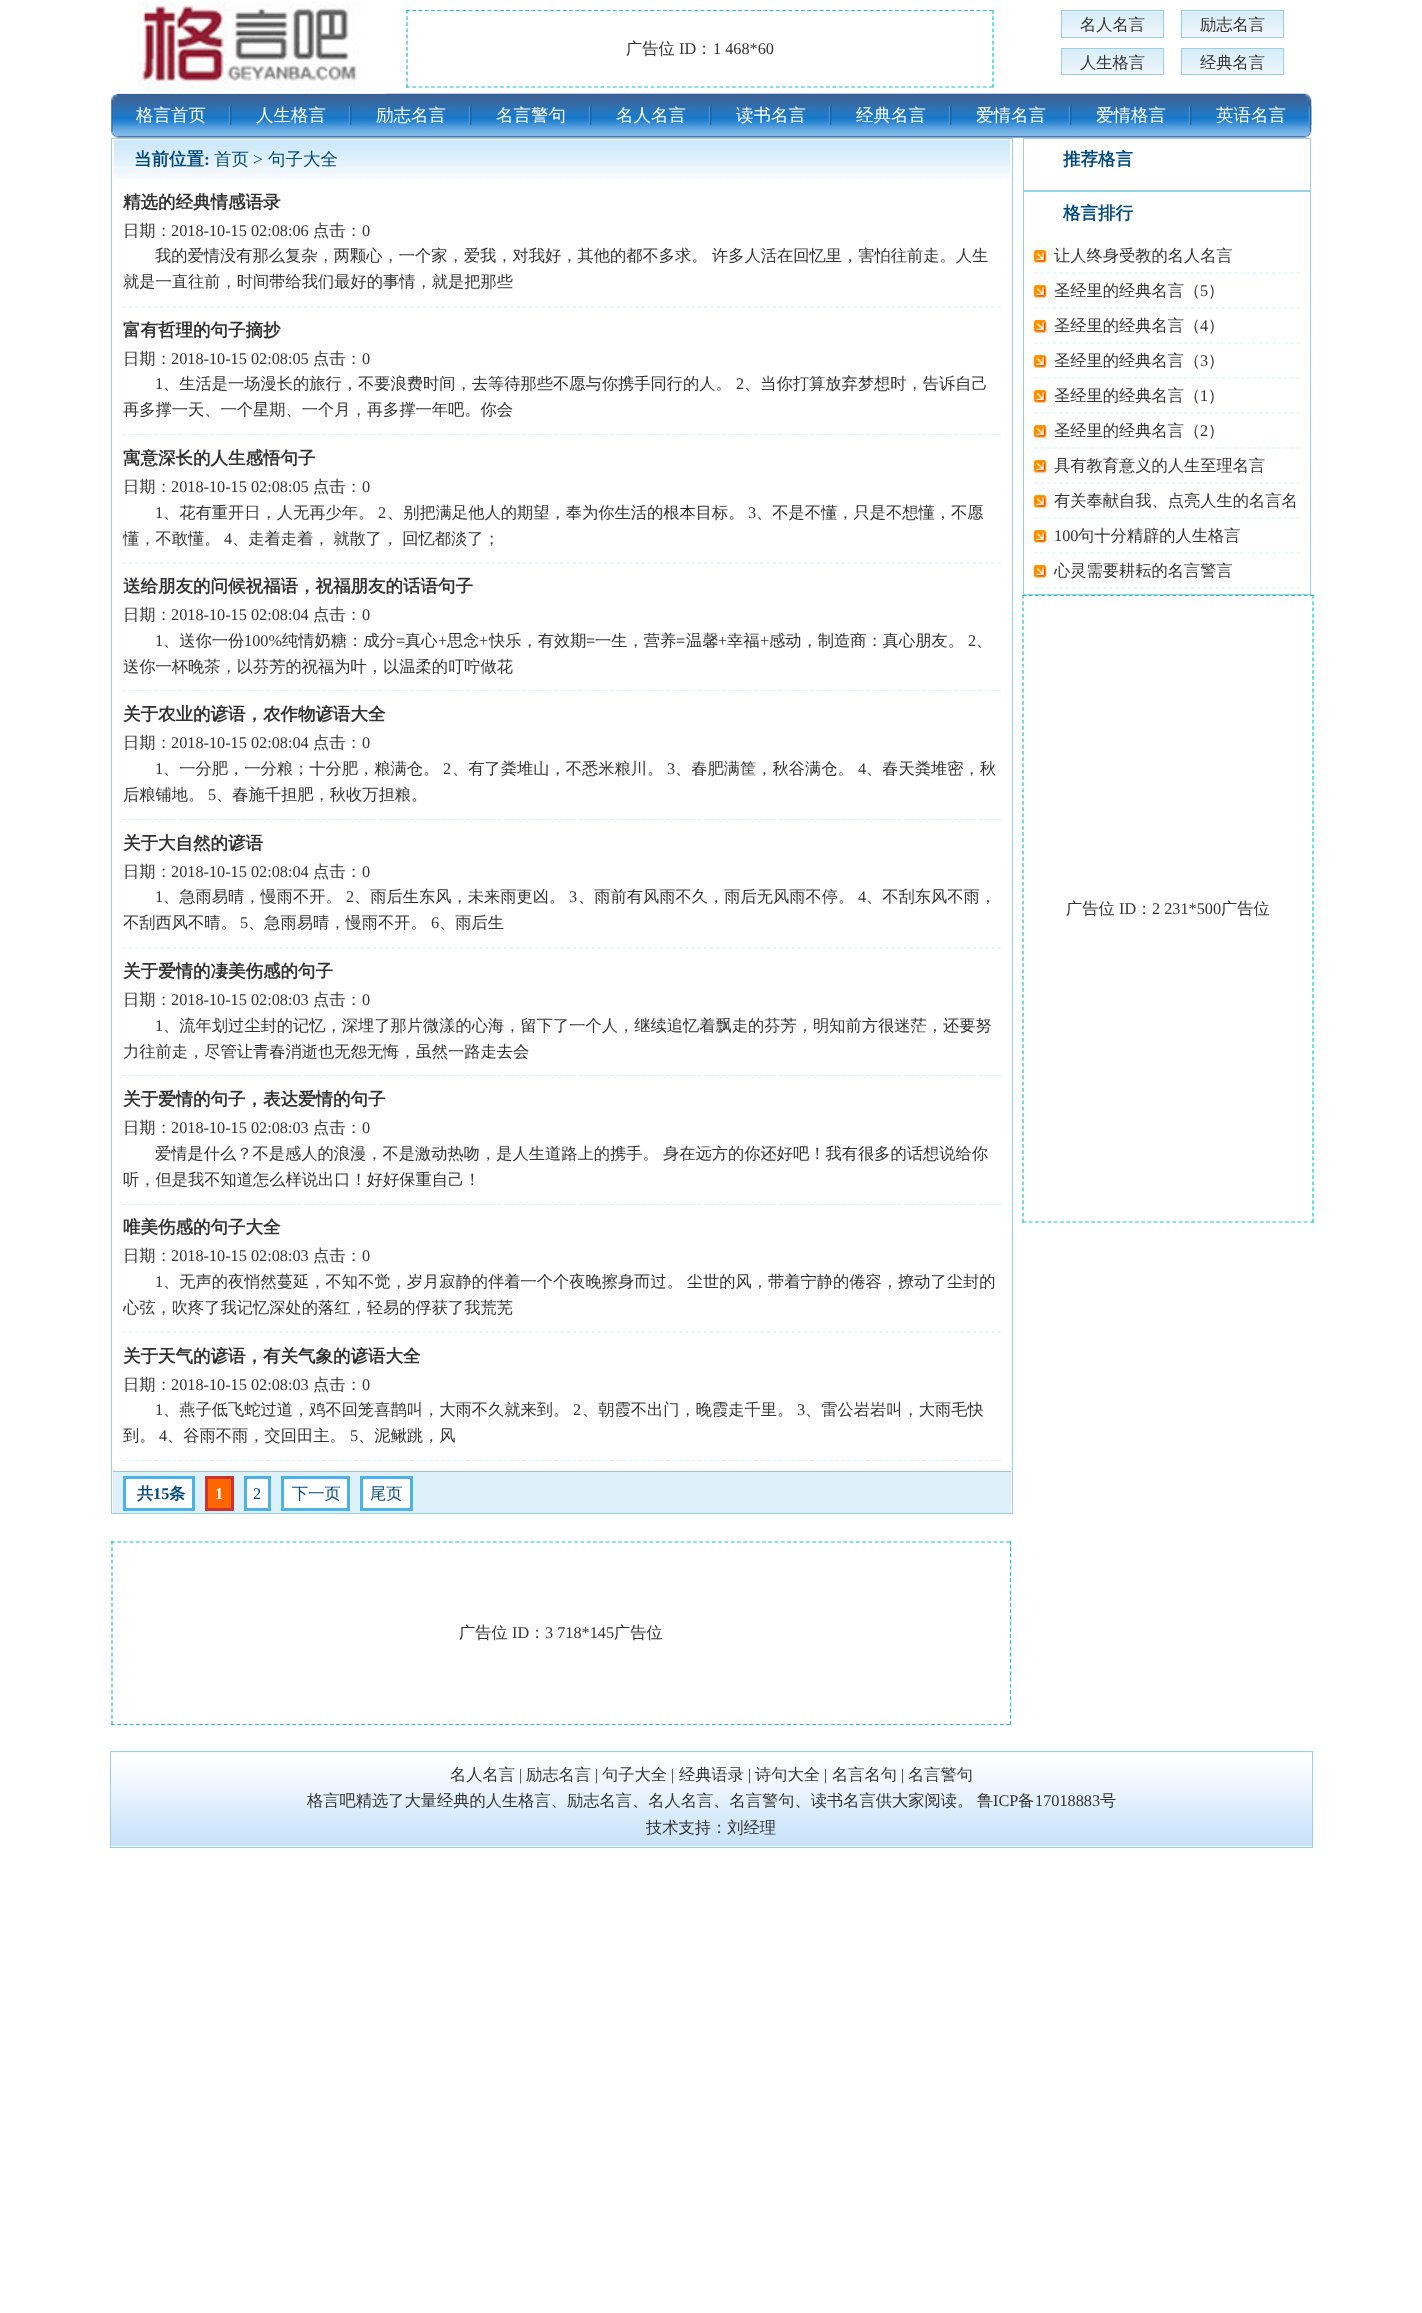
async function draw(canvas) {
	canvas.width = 1422;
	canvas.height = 2313;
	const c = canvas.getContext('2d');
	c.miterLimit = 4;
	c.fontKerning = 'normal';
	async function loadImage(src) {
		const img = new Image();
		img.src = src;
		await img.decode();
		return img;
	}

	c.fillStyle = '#fff';
	c.fillRect(0, 0, 1422, 2313);
	c.drawImage(await loadImage('img4.png'), 111, 93, 1201, 45);
	c.drawImage(await loadImage('img1.png'), 115, 1, 272, 93);
	c.beginPath();
	c.moveTo(406, 10.5);
	c.lineTo(994, 10.5);
	c.strokeStyle = '#18c2c8';
	c.lineWidth = 1.2;
	c.setLineDash([3.75, 2.52]);
	c.stroke();
	c.beginPath();
	c.moveTo(993, 10);
	c.lineTo(993, 87.5);
	c.setLineDash([3.75, 2.4]);
	c.stroke();
	c.beginPath();
	c.moveTo(406, 87);
	c.lineTo(994, 87);
	c.setLineDash([3.75, 2.52]);
	c.stroke();
	c.beginPath();
	c.moveTo(407, 10);
	c.lineTo(407, 87.5);
	c.setLineDash([3.75, 2.4]);
	c.stroke();
	c.font = '500 16.25px WenQuanYi Zen Hei';
	c.fillStyle = '#333';
	c.fillText('广告位', 626, 54);
	c.font = '16.25px Liberation Serif';
	c.fillText('ID', 679, 54);
	c.font = '500 16.25px WenQuanYi Zen Hei';
	c.fillText('：', 696, 54);
	c.font = '16.25px Liberation Serif';
	c.fillText('1 468*60', 713, 54);
	c.drawImage(await loadImage('img2.png'), 1062, 11, 101, 26);
	c.strokeStyle = '#97d1e7';
	c.lineWidth = 1;
	c.setLineDash([]);
	c.strokeRect(1061.5, 10.5, 102, 27);
	c.font = '500 16.25px WenQuanYi Zen Hei';
	c.fillText('名人名言', 1080, 30);
	c.drawImage(await loadImage('img2.png'), 1182, 11, 101, 26);
	c.strokeRect(1181.5, 10.5, 102, 27);
	c.fillText('励志名言', 1200, 30);
	c.drawImage(await loadImage('img3.png'), 1062, 49, 101, 25);
	c.strokeRect(1061.5, 48.5, 102, 26);
	c.fillText('人生格言', 1080, 68);
	c.drawImage(await loadImage('img3.png'), 1182, 49, 101, 25);
	c.strokeRect(1181.5, 48.5, 102, 26);
	c.fillText('经典名言', 1200, 68);
	c.drawImage(await loadImage('img5.png'), 228, 106, 4, 19);
	c.font = '500 17.5px WenQuanYi Zen Hei';
	c.fillStyle = '#fff';
	c.fillText('格言首页', 136, 121);
	c.drawImage(await loadImage('img6.png'), 348, 106, 4, 19);
	c.fillText('人生格言', 256, 121);
	c.drawImage(await loadImage('img7.png'), 468, 106, 4, 19);
	c.fillText('励志名言', 376, 121);
	c.drawImage(await loadImage('img8.png'), 588, 106, 4, 19);
	c.fillText('名言警句', 496, 121);
	c.drawImage(await loadImage('img9.png'), 708, 106, 4, 19);
	c.fillText('名人名言', 616, 121);
	c.drawImage(await loadImage('img10.png'), 828, 106, 4, 19);
	c.fillText('读书名言', 736, 121);
	c.drawImage(await loadImage('img11.png'), 948, 106, 4, 19);
	c.fillText('经典名言', 856, 121);
	c.drawImage(await loadImage('img12.png'), 1068, 106, 4, 19);
	c.fillText('爱情名言', 976, 121);
	c.drawImage(await loadImage('img13.png'), 1188, 106, 4, 19);
	c.fillText('爱情格言', 1096, 121);
	c.drawImage(await loadImage('img14.png'), 1308, 106, 4, 19);
	c.fillText('英语名言', 1216, 121);
	c.strokeRect(111.5, 138.5, 901, 1375);
	c.drawImage(await loadImage('img15.png'), 113, 140, 897, 39);
	c.font = 'bold 17.5px WenQuanYi Zen Hei';
	c.fillStyle = '#014a7f';
	c.fillText('当前位置', 134, 165);
	c.font = 'bold 17.5px Liberation Serif';
	c.fillText(':', 204, 165);
	c.font = '500 17.5px WenQuanYi Zen Hei';
	c.fillText('首页', 214, 165);
	c.font = '17.5px Liberation Serif';
	c.fillText('>', 253, 165);
	c.font = '500 17.5px WenQuanYi Zen Hei';
	c.fillText('句子大全', 268, 165);
	c.beginPath();
	c.moveTo(122.5, 307);
	c.lineTo(1001, 307);
	c.strokeStyle = '#dbf2f8';
	c.lineWidth = 1.2;
	c.setLineDash([3.75, 2.5]);
	c.stroke();
	c.font = 'bold 17.5px WenQuanYi Zen Hei';
	c.fillStyle = '#333';
	c.fillText('精选的经典情感语录', 123, 208);
	c.font = '500 16.25px WenQuanYi Zen Hei';
	c.fillText('日期：', 123, 236);
	c.font = '16.25px Liberation Serif';
	c.fillText('2018-10-15 02:08:06', 171, 236);
	c.font = '500 16.25px WenQuanYi Zen Hei';
	c.fillText('点击：', 313, 236);
	c.font = '16.25px Liberation Serif';
	c.fillText('0', 362, 236);
	c.font = '500 16.25px WenQuanYi Zen Hei';
	for (const [text, x, y] of [
		['我的爱情没有那么复杂，两颗心，一个家，爱我，对我好，其他的都不多求。', 155, 261],
		['许多人活在回忆里，害怕往前走。人生', 712, 261],
		['就是一直往前，时间带给我们最好的事情，就是把那些', 123, 287],
	]) {
		c.fillText(text, x, y);
	}
	c.beginPath();
	c.moveTo(122.5, 434.5);
	c.lineTo(1001, 434.5);
	c.stroke();
	c.font = 'bold 17.5px WenQuanYi Zen Hei';
	c.fillText('富有哲理的句子摘抄', 123, 336);
	c.font = '500 16.25px WenQuanYi Zen Hei';
	c.fillText('日期：', 123, 364);
	c.font = '16.25px Liberation Serif';
	c.fillText('2018-10-15 02:08:05', 171, 364);
	c.font = '500 16.25px WenQuanYi Zen Hei';
	c.fillText('点击：', 313, 364);
	c.font = '16.25px Liberation Serif';
	c.fillText('0', 362, 364);
	c.fillText('1', 155, 389);
	c.font = '500 16.25px WenQuanYi Zen Hei';
	c.fillText('、生活是一场漫长的旅行，不要浪费时间，去等待那些不愿与你携手同行的人。', 163, 389);
	c.font = '16.25px Liberation Serif';
	c.fillText('2', 736, 389);
	c.font = '500 16.25px WenQuanYi Zen Hei';
	c.fillText('、当你打算放弃梦想时，告诉自己', 744, 389);
	c.fillText('再多撑一天、一个星期、一个月，再多撑一年吧。你会', 123, 415);
	c.beginPath();
	c.moveTo(122.5, 563);
	c.lineTo(1001, 563);
	c.stroke();
	c.font = 'bold 17.5px WenQuanYi Zen Hei';
	c.fillText('寓意深长的人生感悟句子', 123, 464);
	c.font = '500 16.25px WenQuanYi Zen Hei';
	c.fillText('日期：', 123, 492);
	c.font = '16.25px Liberation Serif';
	c.fillText('2018-10-15 02:08:05', 171, 492);
	c.font = '500 16.25px WenQuanYi Zen Hei';
	c.fillText('点击：', 313, 492);
	c.font = '16.25px Liberation Serif';
	c.fillText('0', 362, 492);
	c.fillText('1', 155, 518);
	c.font = '500 16.25px WenQuanYi Zen Hei';
	c.fillText('、花有重开日，人无再少年。', 163, 518);
	c.font = '16.25px Liberation Serif';
	c.fillText('2', 378, 518);
	c.font = '500 16.25px WenQuanYi Zen Hei';
	c.fillText('、别把满足他人的期望，奉为你生活的根本目标。', 387, 518);
	c.font = '16.25px Liberation Serif';
	c.fillText('3', 748, 518);
	c.font = '500 16.25px WenQuanYi Zen Hei';
	c.fillText('、不是不懂，只是不想懂，不愿', 756, 518);
	c.fillText('懂，不敢懂。', 123, 544);
	c.font = '16.25px Liberation Serif';
	c.fillText('4', 224, 544);
	c.wordSpacing = '-1px';
	c.font = '500 16.25px WenQuanYi Zen Hei';
	c.fillText('、走着走着， 就散了， 回忆都淡了；', 232, 544);
	c.beginPath();
	c.moveTo(122.5, 690.5);
	c.lineTo(1001, 690.5);
	c.stroke();
	c.wordSpacing = '0px';
	c.font = 'bold 17.5px WenQuanYi Zen Hei';
	c.fillText('送给朋友的问候祝福语，祝福朋友的话语句子', 123, 592);
	c.font = '500 16.25px WenQuanYi Zen Hei';
	c.fillText('日期：', 123, 620);
	c.font = '16.25px Liberation Serif';
	c.fillText('2018-10-15 02:08:04', 171, 620);
	c.font = '500 16.25px WenQuanYi Zen Hei';
	c.fillText('点击：', 313, 620);
	c.font = '16.25px Liberation Serif';
	c.fillText('0', 362, 620);
	c.fillText('1', 155, 646);
	c.font = '500 16.25px WenQuanYi Zen Hei';
	c.fillText('、送你一份', 163, 646);
	c.font = '16.25px Liberation Serif';
	c.fillText('100%', 244, 646);
	c.font = '500 16.25px WenQuanYi Zen Hei';
	c.fillText('纯情奶糖：成分', 282, 646);
	c.font = '16.25px Liberation Serif';
	c.fillText('=', 396, 646);
	c.font = '500 16.25px WenQuanYi Zen Hei';
	c.fillText('真心', 405, 646);
	c.font = '16.25px Liberation Serif';
	c.fillText('+', 438, 646);
	c.font = '500 16.25px WenQuanYi Zen Hei';
	c.fillText('思念', 447, 646);
	c.font = '16.25px Liberation Serif';
	c.fillText('+', 479, 646);
	c.font = '500 16.25px WenQuanYi Zen Hei';
	c.fillText('快乐，有效期', 489, 646);
	c.font = '16.25px Liberation Serif';
	c.fillText('=', 586, 646);
	c.font = '500 16.25px WenQuanYi Zen Hei';
	c.fillText('一生，营养', 595, 646);
	c.font = '16.25px Liberation Serif';
	c.fillText('=', 676, 646);
	c.font = '500 16.25px WenQuanYi Zen Hei';
	c.fillText('温馨', 686, 646);
	c.font = '16.25px Liberation Serif';
	c.fillText('+', 718, 646);
	c.font = '500 16.25px WenQuanYi Zen Hei';
	c.fillText('幸福', 727, 646);
	c.font = '16.25px Liberation Serif';
	c.fillText('+', 760, 646);
	c.font = '500 16.25px WenQuanYi Zen Hei';
	c.fillText('感动，制造商：真心朋友。', 769, 646);
	c.font = '16.25px Liberation Serif';
	c.fillText('2', 968, 646);
	c.font = '500 16.25px WenQuanYi Zen Hei';
	c.fillText('、', 976, 646);
	c.fillText('送你一杯晚茶，以芬芳的祝福为叶，以温柔的叮咛做花', 123, 672);
	c.beginPath();
	c.moveTo(122.5, 819.5);
	c.lineTo(1001, 819.5);
	c.stroke();
	c.font = 'bold 17.5px WenQuanYi Zen Hei';
	c.fillText('关于农业的谚语，农作物谚语大全', 123, 720);
	c.font = '500 16.25px WenQuanYi Zen Hei';
	c.fillText('日期：', 123, 748);
	c.font = '16.25px Liberation Serif';
	c.fillText('2018-10-15 02:08:04', 171, 748);
	c.font = '500 16.25px WenQuanYi Zen Hei';
	c.fillText('点击：', 313, 748);
	c.font = '16.25px Liberation Serif';
	c.fillText('0', 362, 748);
	c.fillText('1', 155, 774);
	c.font = '500 16.25px WenQuanYi Zen Hei';
	c.fillText('、一分肥，一分粮；十分肥，粮满仓。', 163, 774);
	c.font = '16.25px Liberation Serif';
	c.fillText('2', 443, 774);
	c.font = '500 16.25px WenQuanYi Zen Hei';
	c.fillText('、有了粪堆山，不悉米粮川。', 452, 774);
	c.font = '16.25px Liberation Serif';
	c.fillText('3', 667, 774);
	c.font = '500 16.25px WenQuanYi Zen Hei';
	c.fillText('、春肥满筐，秋谷满仓。', 675, 774);
	c.font = '16.25px Liberation Serif';
	c.fillText('4', 858, 774);
	c.font = '500 16.25px WenQuanYi Zen Hei';
	c.fillText('、春天粪堆密，秋', 866, 774);
	c.fillText('后粮铺地。', 123, 800);
	c.font = '16.25px Liberation Serif';
	c.fillText('5', 208, 800);
	c.font = '500 16.25px WenQuanYi Zen Hei';
	c.fillText('、春施千担肥，秋收万担粮。', 216, 800);
	c.beginPath();
	c.moveTo(122.5, 948);
	c.lineTo(1001, 948);
	c.stroke();
	c.font = 'bold 17.5px WenQuanYi Zen Hei';
	c.fillText('关于大自然的谚语', 123, 849);
	c.font = '500 16.25px WenQuanYi Zen Hei';
	c.fillText('日期：', 123, 877);
	c.font = '16.25px Liberation Serif';
	c.fillText('2018-10-15 02:08:04', 171, 877);
	c.font = '500 16.25px WenQuanYi Zen Hei';
	c.fillText('点击：', 313, 877);
	c.font = '16.25px Liberation Serif';
	c.fillText('0', 362, 877);
	c.fillText('1', 155, 902);
	c.font = '500 16.25px WenQuanYi Zen Hei';
	c.fillText('、急雨易晴，慢雨不开。', 163, 902);
	c.font = '16.25px Liberation Serif';
	c.fillText('2', 346, 902);
	c.font = '500 16.25px WenQuanYi Zen Hei';
	c.fillText('、雨后生东风，未来雨更凶。', 354, 902);
	c.font = '16.25px Liberation Serif';
	c.fillText('3', 569, 902);
	c.font = '500 16.25px WenQuanYi Zen Hei';
	c.fillText('、雨前有风雨不久，雨后无风雨不停。', 578, 902);
	c.font = '16.25px Liberation Serif';
	c.fillText('4', 858, 902);
	c.font = '500 16.25px WenQuanYi Zen Hei';
	c.fillText('、不刮东风不雨，', 866, 902);
	c.fillText('不刮西风不晴。', 123, 928);
	c.font = '16.25px Liberation Serif';
	c.fillText('5', 240, 928);
	c.font = '500 16.25px WenQuanYi Zen Hei';
	c.fillText('、急雨易晴，慢雨不开。', 248, 928);
	c.font = '16.25px Liberation Serif';
	c.fillText('6', 431, 928);
	c.font = '500 16.25px WenQuanYi Zen Hei';
	c.fillText('、雨后生', 439, 928);
	c.beginPath();
	c.moveTo(122.5, 1075.5);
	c.lineTo(1001, 1075.5);
	c.stroke();
	c.font = 'bold 17.5px WenQuanYi Zen Hei';
	c.fillText('关于爱情的凄美伤感的句子', 123, 977);
	c.font = '500 16.25px WenQuanYi Zen Hei';
	c.fillText('日期：', 123, 1005);
	c.font = '16.25px Liberation Serif';
	c.fillText('2018-10-15 02:08:03', 171, 1005);
	c.font = '500 16.25px WenQuanYi Zen Hei';
	c.fillText('点击：', 313, 1005);
	c.font = '16.25px Liberation Serif';
	c.fillText('0', 362, 1005);
	c.fillText('1', 155, 1031);
	c.font = '500 16.25px WenQuanYi Zen Hei';
	c.fillText('、流年划过尘封的记忆，深埋了那片微漾的心海，留下了一个人，继续追忆着飘走的芬芳，明知前方很迷茫，还要努', 163, 1031);
	c.fillText('力往前走，尽管让青春消逝也无怨无悔，虽然一路走去会', 123, 1057);
	c.beginPath();
	c.moveTo(122.5, 1204.5);
	c.lineTo(1001, 1204.5);
	c.stroke();
	c.font = 'bold 17.5px WenQuanYi Zen Hei';
	c.fillText('关于爱情的句子，表达爱情的句子', 123, 1105);
	c.font = '500 16.25px WenQuanYi Zen Hei';
	c.fillText('日期：', 123, 1133);
	c.font = '16.25px Liberation Serif';
	c.fillText('2018-10-15 02:08:03', 171, 1133);
	c.font = '500 16.25px WenQuanYi Zen Hei';
	c.fillText('点击：', 313, 1133);
	c.font = '16.25px Liberation Serif';
	c.fillText('0', 362, 1133);
	c.font = '500 16.25px WenQuanYi Zen Hei';
	for (const [text, x, y] of [
		['爱情是什么？不是感人的浪漫，不是激动热吻，是人生道路上的携手。', 155, 1159],
		['身在远方的你还好吧！我有很多的话想说给你', 663, 1159],
		['听，但是我不知道怎么样说出口！好好保重自己！', 123, 1185],
	]) {
		c.fillText(text, x, y);
	}
	c.beginPath();
	c.moveTo(122.5, 1332);
	c.lineTo(1001, 1332);
	c.stroke();
	c.font = 'bold 17.5px WenQuanYi Zen Hei';
	c.fillText('唯美伤感的句子大全', 123, 1233);
	c.font = '500 16.25px WenQuanYi Zen Hei';
	c.fillText('日期：', 123, 1261);
	c.font = '16.25px Liberation Serif';
	c.fillText('2018-10-15 02:08:03', 171, 1261);
	c.font = '500 16.25px WenQuanYi Zen Hei';
	c.fillText('点击：', 313, 1261);
	c.font = '16.25px Liberation Serif';
	c.fillText('0', 362, 1261);
	c.fillText('1', 155, 1287);
	c.wordSpacing = '-1px';
	c.font = '500 16.25px WenQuanYi Zen Hei';
	c.fillText('、无声的夜悄然蔓延，不知不觉，岁月寂静的伴着一个个夜晚擦身而过。 尘世的风，带着宁静的倦容，撩动了尘封的', 163, 1287);
	c.wordSpacing = '0px';
	c.fillText('心弦，吹疼了我记忆深处的落红，轻易的俘获了我荒芜', 123, 1313);
	c.beginPath();
	c.moveTo(122.5, 1460.5);
	c.lineTo(1001, 1460.5);
	c.stroke();
	c.font = 'bold 17.5px WenQuanYi Zen Hei';
	c.fillText('关于天气的谚语，有关气象的谚语大全', 123, 1362);
	c.font = '500 16.25px WenQuanYi Zen Hei';
	c.fillText('日期：', 123, 1390);
	c.font = '16.25px Liberation Serif';
	c.fillText('2018-10-15 02:08:03', 171, 1390);
	c.font = '500 16.25px WenQuanYi Zen Hei';
	c.fillText('点击：', 313, 1390);
	c.font = '16.25px Liberation Serif';
	c.fillText('0', 362, 1390);
	c.fillText('1', 155, 1415);
	c.font = '500 16.25px WenQuanYi Zen Hei';
	c.fillText('、燕子低飞蛇过道，鸡不回笼喜鹊叫，大雨不久就来到。', 163, 1415);
	c.font = '16.25px Liberation Serif';
	c.fillText('2', 573, 1415);
	c.font = '500 16.25px WenQuanYi Zen Hei';
	c.fillText('、朝霞不出门，晚霞走千里。', 582, 1415);
	c.font = '16.25px Liberation Serif';
	c.fillText('3', 797, 1415);
	c.font = '500 16.25px WenQuanYi Zen Hei';
	c.fillText('、雷公岩岩叫，大雨毛快', 805, 1415);
	c.fillText('到。', 123, 1441);
	c.font = '16.25px Liberation Serif';
	c.fillText('4', 159, 1441);
	c.font = '500 16.25px WenQuanYi Zen Hei';
	c.fillText('、谷雨不雨，交回田主。', 167, 1441);
	c.font = '16.25px Liberation Serif';
	c.fillText('5', 350, 1441);
	c.font = '500 16.25px WenQuanYi Zen Hei';
	c.fillText('、泥鳅跳，风', 358, 1441);
	c.fillStyle = '#def0f9';
	c.fillRect(113, 1472, 898, 41);
	c.fillStyle = '#9ac1e2';
	c.fillRect(113, 1471, 898, 1);
	c.fillStyle = '#fff';
	c.beginPath();
	c.rect(124.5, 1477.5, 69, 32);
	c.fill();
	c.strokeStyle = '#4db1ea';
	c.lineWidth = 3;
	c.setLineDash([]);
	c.stroke();
	c.font = 'bold 16.25px WenQuanYi Zen Hei';
	c.fillStyle = '#014a7f';
	c.fillText('共', 137, 1499);
	c.font = 'bold 16.25px Liberation Serif';
	c.fillText('15', 153, 1499);
	c.font = 'bold 16.25px WenQuanYi Zen Hei';
	c.fillText('条', 169, 1499);
	c.fillStyle = '#f60';
	c.beginPath();
	c.rect(206.5, 1477.5, 26, 32);
	c.fill();
	c.strokeStyle = '#c33';
	c.stroke();
	c.font = 'bold 16.25px Liberation Serif';
	c.fillStyle = '#fff';
	c.fillText('1', 215, 1499);
	c.beginPath();
	c.rect(245.5, 1477.5, 24, 32);
	c.fill();
	c.strokeStyle = '#4db1ea';
	c.stroke();
	c.font = '16.25px Liberation Serif';
	c.fillStyle = '#014a7f';
	c.fillText('2', 253, 1499);
	c.fillStyle = '#fff';
	c.beginPath();
	c.rect(282.5, 1477.5, 66, 32);
	c.fill();
	c.stroke();
	c.font = '500 16.25px WenQuanYi Zen Hei';
	c.fillStyle = '#014a7f';
	c.fillText('下一页', 292, 1499);
	c.fillStyle = '#fff';
	c.beginPath();
	c.rect(361.5, 1477.5, 50, 32);
	c.fill();
	c.stroke();
	c.fillStyle = '#014a7f';
	c.fillText('尾页', 370, 1499);
	c.beginPath();
	c.moveTo(111, 1542);
	c.lineTo(1011, 1542);
	c.strokeStyle = '#18c2c8';
	c.lineWidth = 1.2;
	c.setLineDash([3.75, 2.51]);
	c.stroke();
	c.beginPath();
	c.moveTo(1010.5, 1541);
	c.lineTo(1010.5, 1725);
	c.setLineDash([3.75, 2.46]);
	c.stroke();
	c.beginPath();
	c.moveTo(111, 1724.5);
	c.lineTo(1011, 1724.5);
	c.setLineDash([3.75, 2.51]);
	c.stroke();
	c.beginPath();
	c.moveTo(112, 1541);
	c.lineTo(112, 1725);
	c.setLineDash([3.75, 2.46]);
	c.stroke();
	c.fillStyle = '#333';
	c.fillText('广告位', 459, 1638);
	c.font = '16.25px Liberation Serif';
	c.fillText('ID', 512, 1638);
	c.font = '500 16.25px WenQuanYi Zen Hei';
	c.fillText('：', 529, 1638);
	c.font = '16.25px Liberation Serif';
	c.fillText('3 718*145', 545, 1638);
	c.font = '500 16.25px WenQuanYi Zen Hei';
	c.fillText('广告位', 614, 1638);
	c.strokeStyle = '#97d1e7';
	c.lineWidth = 1;
	c.setLineDash([]);
	c.strokeRect(1023.5, 138.5, 287, 52);
	c.font = 'bold 17.5px WenQuanYi Zen Hei';
	c.fillStyle = '#014a7f';
	c.fillText('推荐格言', 1063, 165);
	c.strokeRect(1023.5, 191.5, 287, 403);
	c.fillText('格言排行', 1063, 219);
	c.beginPath();
	c.moveTo(1034, 273);
	c.lineTo(1300, 273);
	c.strokeStyle = '#dbf2f8';
	c.lineWidth = 1.2;
	c.setLineDash([3.75, 2.5]);
	c.stroke();
	c.drawImage(await loadImage('img16.png'), 1033, 250, 14, 13);
	c.font = '500 16.25px WenQuanYi Zen Hei';
	c.fillStyle = '#333';
	c.fillText('让人终身受教的名人名言', 1054, 261);
	c.beginPath();
	c.moveTo(1034, 308);
	c.lineTo(1300, 308);
	c.stroke();
	c.drawImage(await loadImage('img16.png'), 1033, 285, 14, 13);
	c.fillText('圣经里的经典名言（', 1054, 296);
	c.font = '16.25px Liberation Serif';
	c.fillText('5', 1200, 296);
	c.font = '500 16.25px WenQuanYi Zen Hei';
	c.fillText('）', 1208, 296);
	c.beginPath();
	c.moveTo(1034, 343);
	c.lineTo(1300, 343);
	c.stroke();
	c.drawImage(await loadImage('img16.png'), 1033, 320, 14, 13);
	c.fillText('圣经里的经典名言（', 1054, 331);
	c.font = '16.25px Liberation Serif';
	c.fillText('4', 1200, 331);
	c.font = '500 16.25px WenQuanYi Zen Hei';
	c.fillText('）', 1208, 331);
	c.beginPath();
	c.moveTo(1034, 378);
	c.lineTo(1300, 378);
	c.stroke();
	c.drawImage(await loadImage('img16.png'), 1033, 355, 14, 13);
	c.fillText('圣经里的经典名言（', 1054, 366);
	c.font = '16.25px Liberation Serif';
	c.fillText('3', 1200, 366);
	c.font = '500 16.25px WenQuanYi Zen Hei';
	c.fillText('）', 1208, 366);
	c.beginPath();
	c.moveTo(1034, 413);
	c.lineTo(1300, 413);
	c.stroke();
	c.drawImage(await loadImage('img16.png'), 1033, 390, 14, 13);
	c.fillText('圣经里的经典名言（', 1054, 401);
	c.font = '16.25px Liberation Serif';
	c.fillText('1', 1200, 401);
	c.font = '500 16.25px WenQuanYi Zen Hei';
	c.fillText('）', 1208, 401);
	c.beginPath();
	c.moveTo(1034, 448);
	c.lineTo(1300, 448);
	c.stroke();
	c.drawImage(await loadImage('img16.png'), 1033, 425, 14, 13);
	c.fillText('圣经里的经典名言（', 1054, 436);
	c.font = '16.25px Liberation Serif';
	c.fillText('2', 1200, 436);
	c.font = '500 16.25px WenQuanYi Zen Hei';
	c.fillText('）', 1208, 436);
	c.beginPath();
	c.moveTo(1034, 483);
	c.lineTo(1300, 483);
	c.stroke();
	c.drawImage(await loadImage('img16.png'), 1033, 460, 14, 13);
	c.fillText('具有教育意义的人生至理名言', 1054, 471);
	c.beginPath();
	c.moveTo(1034, 518);
	c.lineTo(1300, 518);
	c.stroke();
	c.drawImage(await loadImage('img16.png'), 1033, 495, 14, 13);
	c.fillText('有关奉献自我、点亮人生的名言名', 1054, 506);
	c.beginPath();
	c.moveTo(1034, 553);
	c.lineTo(1300, 553);
	c.stroke();
	c.drawImage(await loadImage('img16.png'), 1033, 530, 14, 13);
	c.font = '16.25px Liberation Serif';
	c.fillText('100', 1054, 541);
	c.font = '500 16.25px WenQuanYi Zen Hei';
	c.fillText('句十分精辟的人生格言', 1078, 541);
	c.beginPath();
	c.moveTo(1034, 588);
	c.lineTo(1300, 588);
	c.stroke();
	c.drawImage(await loadImage('img16.png'), 1033, 565, 14, 13);
	c.fillText('心灵需要耕耘的名言警言', 1054, 576);
	c.beginPath();
	c.moveTo(1022.5, 595.5);
	c.lineTo(1314, 595.5);
	c.strokeStyle = '#18c2c8';
	c.stroke();
	c.beginPath();
	c.moveTo(1313, 595);
	c.lineTo(1313, 1222.5);
	c.setLineDash([3.75, 2.49]);
	c.stroke();
	c.beginPath();
	c.moveTo(1022.5, 1222);
	c.lineTo(1314, 1222);
	c.setLineDash([3.75, 2.5]);
	c.stroke();
	c.beginPath();
	c.moveTo(1023, 595);
	c.lineTo(1023, 1222.5);
	c.setLineDash([3.75, 2.49]);
	c.stroke();
	c.fillText('广告位', 1066, 914);
	c.font = '16.25px Liberation Serif';
	c.fillText('ID', 1119, 914);
	c.font = '500 16.25px WenQuanYi Zen Hei';
	c.fillText('：', 1136, 914);
	c.font = '16.25px Liberation Serif';
	c.fillText('2 231*500', 1152, 914);
	c.font = '500 16.25px WenQuanYi Zen Hei';
	c.fillText('广告位', 1221, 914);
	c.drawImage(await loadImage('img17.png'), 111, 1752, 1201, 95);
	c.strokeStyle = '#97d1e7';
	c.lineWidth = 1;
	c.setLineDash([]);
	c.strokeRect(110.5, 1751.5, 1202, 96);
	c.fillText('名人名言', 450, 1780);
	c.font = '16.25px Liberation Serif';
	c.fillText('|', 519, 1780);
	c.font = '500 16.25px WenQuanYi Zen Hei';
	c.fillText('励志名言', 526, 1780);
	c.font = '16.25px Liberation Serif';
	c.fillText('|', 595, 1780);
	c.font = '500 16.25px WenQuanYi Zen Hei';
	c.fillText('句子大全', 602, 1780);
	c.font = '16.25px Liberation Serif';
	c.fillText('|', 671, 1780);
	c.font = '500 16.25px WenQuanYi Zen Hei';
	c.fillText('经典语录', 679, 1780);
	c.font = '16.25px Liberation Serif';
	c.fillText('|', 748, 1780);
	c.font = '500 16.25px WenQuanYi Zen Hei';
	c.fillText('诗句大全', 755, 1780);
	c.font = '16.25px Liberation Serif';
	c.fillText('|', 824, 1780);
	c.font = '500 16.25px WenQuanYi Zen Hei';
	c.fillText('名言名句', 832, 1780);
	c.font = '16.25px Liberation Serif';
	c.fillText('|', 901, 1780);
	c.font = '500 16.25px WenQuanYi Zen Hei';
	for (const [text, x, y] of [
		['名言警句', 908, 1780],
		['格言吧精选了大量经典的人生格言、励志名言、名人名言、名言警句、读书名言供大家阅读。', 307, 1806],
		['鲁', 977, 1806],
	]) {
		c.fillText(text, x, y);
	}
	c.font = '16.25px Liberation Serif';
	c.fillText('ICP', 993, 1806);
	c.font = '500 16.25px WenQuanYi Zen Hei';
	c.fillText('备', 1018, 1806);
	c.font = '16.25px Liberation Serif';
	c.fillText('17018883', 1035, 1806);
	c.font = '500 16.25px WenQuanYi Zen Hei';
	c.fillText('号', 1100, 1806);
	c.fillText('技术支持：刘经理', 646, 1833);
}

draw(document.querySelector('canvas'));
